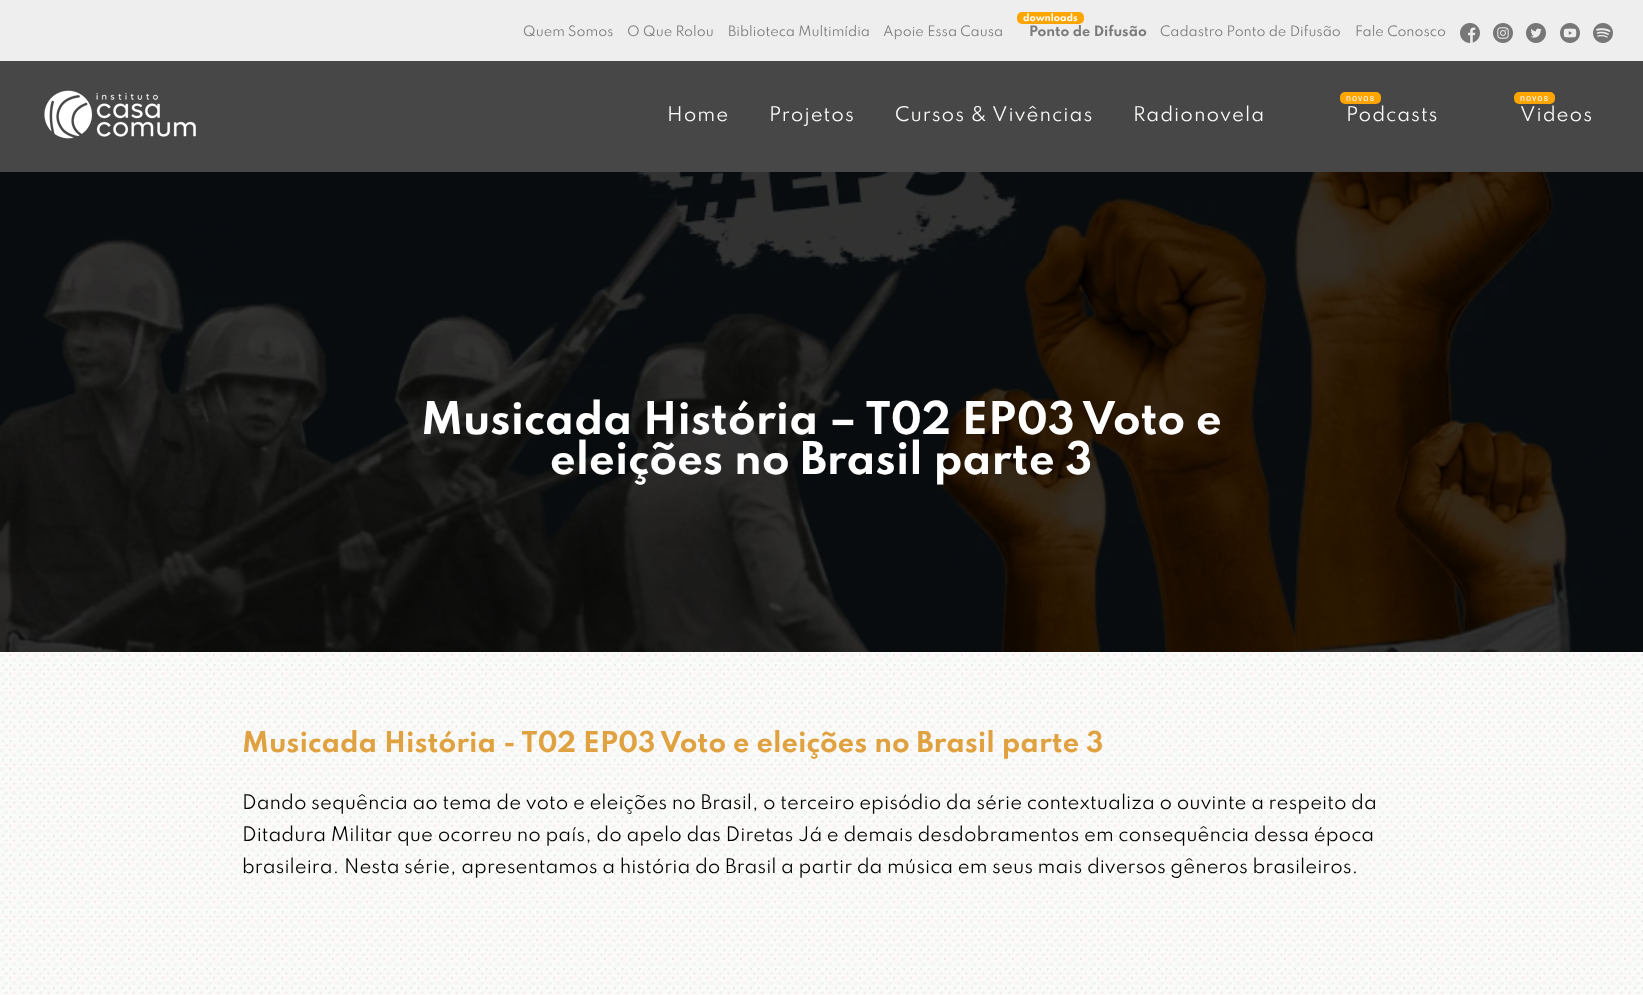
async function draw(canvas) {
	canvas.width = 1643;
	canvas.height = 995;
	const c = canvas.getContext('2d');
	c.miterLimit = 4;
	c.fontKerning = 'normal';
	async function loadImage(src) {
		const img = new Image();
		img.src = src;
		await img.decode();
		return img;
	}

	c.fillStyle = '#fff';
	c.fillRect(0, 0, 1643, 995);
	c.fillStyle = '#eee';
	c.fillRect(0, 0, 1643, 61);
	c.fillStyle = '#fea500';
	c.beginPath();
	c.roundRect(1017, 12, 67, 12, 5);
	c.fill();
	c.font = 'bold 9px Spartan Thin';
	c.fillStyle = '#fff';
	c.fillText('downloads', 1023, 21);
	c.font = '12.75px Spartan Thin';
	c.fillStyle = '#7a7a7a';
	for (const [text, x, y] of [
		['Quem Somos', 523, 36],
		['O Que Rolou', 627, 36],
		['Biblioteca Multimídia', 728, 36],
		['Apoie Essa Causa', 883, 36],
	]) {
		c.fillText(text, x, y);
	}
	c.font = 'bold 12.75px Spartan Thin';
	c.fillText('Ponto de Difusão', 1029, 36);
	c.font = '12.75px Spartan Thin';
	c.fillText('Cadastro Ponto de Difusão', 1160, 36);
	c.fillText('Fale Conosco', 1355, 36);
	c.drawImage(await loadImage('img1.png'), 1460, 23, 20, 20);
	c.drawImage(await loadImage('img2.png'), 1493, 23, 20, 20);
	c.drawImage(await loadImage('img3.png'), 1526, 23, 20, 20);
	c.drawImage(await loadImage('img4.png'), 1560, 23, 20, 20);
	c.drawImage(await loadImage('img5.png'), 1593, 23, 20, 20);
	c.fillStyle = '#474747';
	c.fillRect(0, 61, 1643, 111);
	c.drawImage(await loadImage('img6.png'), 44, 90, 152, 49);
	c.letterSpacing = '1px';
	c.font = '18px Spartan Thin';
	c.fillStyle = '#fbfbf9';
	for (const [text, x, y] of [
		['Home', 667, 121],
		['Projetos', 769, 121],
		['Cursos & Vivências', 895, 121],
		['Radionovela', 1133, 121],
	]) {
		c.fillText(text, x, y);
	}
	c.fillStyle = '#fea500';
	c.beginPath();
	c.roundRect(1340, 92, 41, 12, 5);
	c.fill();
	c.font = '9px Roboto';
	c.fillStyle = '#fbfbf9';
	c.fillText('novos', 1346, 101);
	c.font = '18px Spartan Thin';
	c.fillText('Podcasts', 1346, 121);
	c.fillStyle = '#fea500';
	c.beginPath();
	c.roundRect(1514, 92, 41, 12, 5);
	c.fill();
	c.font = '9px Roboto';
	c.fillStyle = '#fbfbf9';
	c.fillText('novos', 1520, 101);
	c.font = '18px Spartan Thin';
	c.fillText('Videos', 1520, 121);
	c.drawImage(await loadImage('img7.png'), 0, 172, 1643, 480);
	c.letterSpacing = '0px';
	c.font = 'bold 40px Spartan Thin';
	c.fillStyle = '#fff';
	c.fillText('Musicada História – T02 EP03 Voto e', 421, 434);
	c.fillText('eleições no Brasil parte 3', 550, 474);
	c.drawImage(await loadImage('img8.png'), 0, 652, 1643, 343);
	c.font = 'bold 25.6px Spartan Thin';
	c.fillStyle = '#e0a240';
	c.fillText('Musicada História - T02 EP03 Voto e eleições no Brasil parte 3', 242, 752);
	c.font = '17.92px Spartan Thin';
	c.fillStyle = '#000';
	for (const [text, x, y] of [
		['Dando sequência ao tema de voto e eleições no Brasil, o terceiro episódio da série contextualiza o ouvinte a respeito da', 242, 809],
		['Ditadura Militar que ocorreu no país, do apelo das Diretas Já e demais desdobramentos em consequência dessa época', 242, 841],
		['brasileira. Nesta série, apresentamos a história do Brasil a partir da música em seus mais diversos gêneros brasileiros.', 242, 873],
	]) {
		c.fillText(text, x, y);
	}
}

draw(document.querySelector('canvas'));
